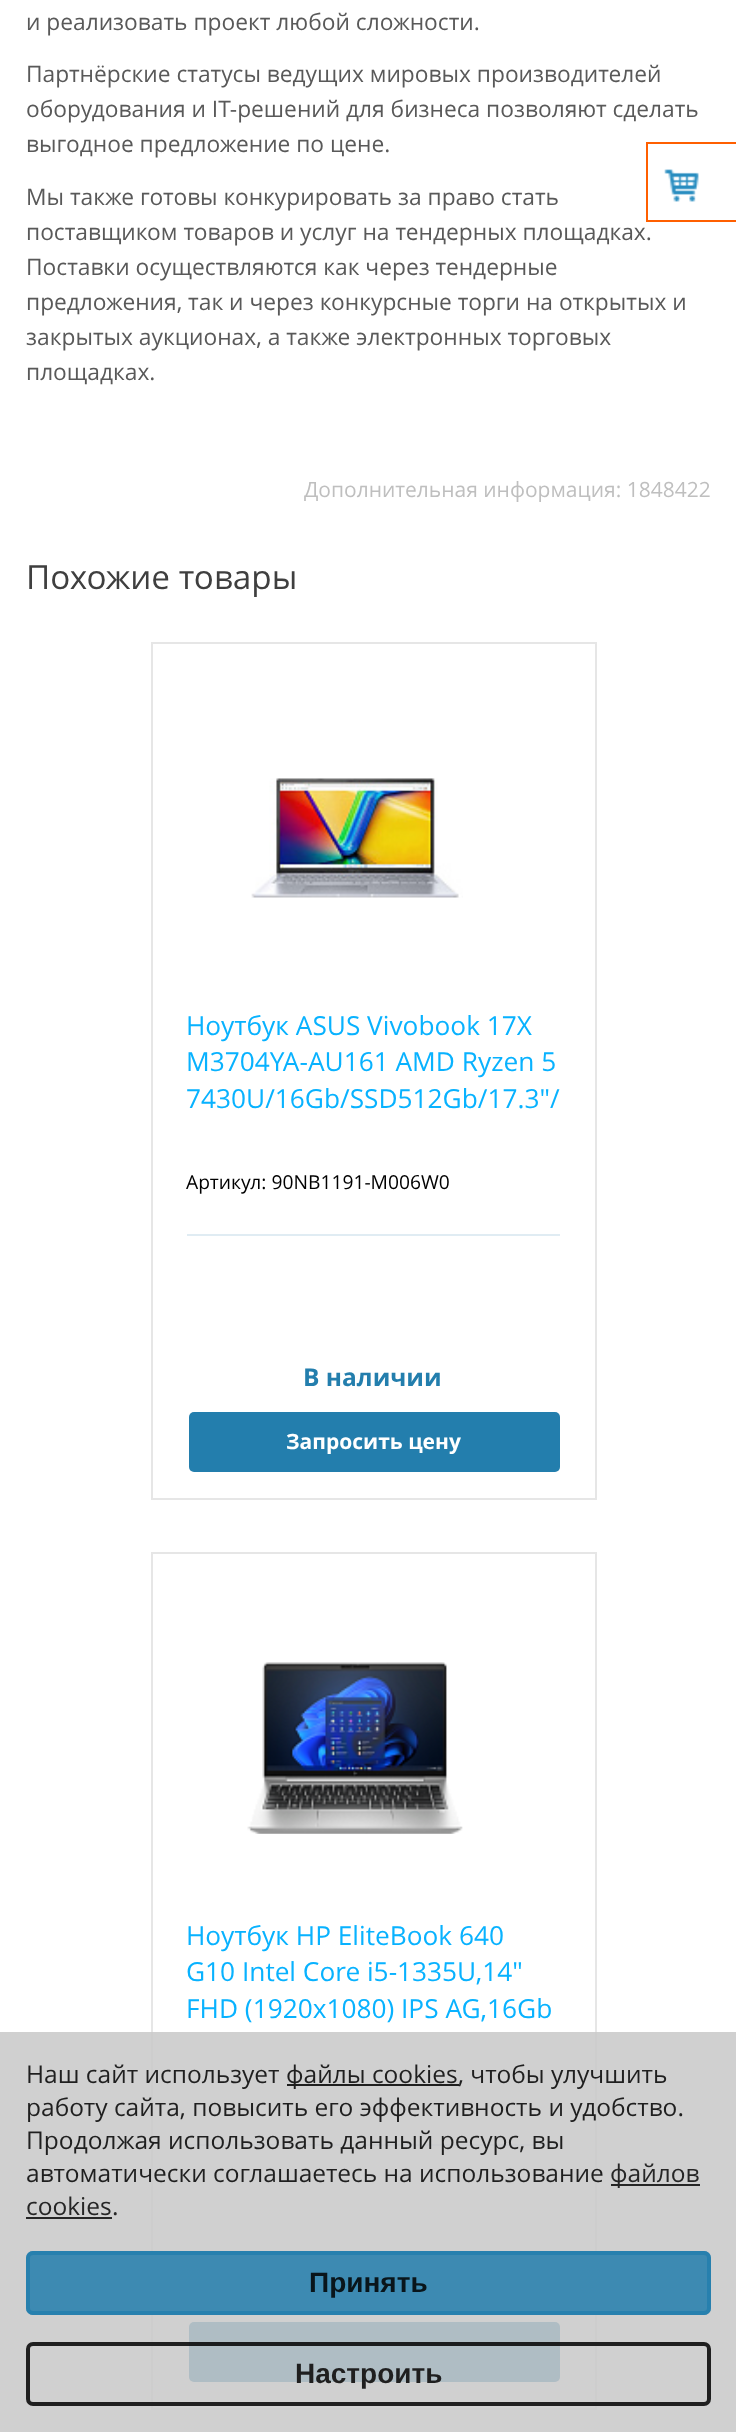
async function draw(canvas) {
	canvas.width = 736;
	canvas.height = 2432;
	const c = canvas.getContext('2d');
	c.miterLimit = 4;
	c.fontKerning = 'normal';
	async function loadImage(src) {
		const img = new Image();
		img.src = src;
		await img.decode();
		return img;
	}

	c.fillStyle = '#fff';
	c.fillRect(0, 0, 736, 2432);
	c.font = '22.75px Open Sans';
	c.fillStyle = '#595959';
	for (const [text, x, y] of [
		['и реализовать проект любой сложности.', 26, 30],
		['Партнёрские статусы ведущих мировых производителей', 26, 82],
		['оборудования и IT-решений для бизнеса позволяют сделать', 26, 117],
		['выгодное предложение по цене.', 26, 152],
		['Мы также готовы конкурировать за право стать', 26, 205],
		['поставщиком товаров и услуг на тендерных площадках.', 26, 240],
		['Поставки осуществляются как через тендерные', 26, 275],
		['предложения, так и через конкурсные торги на открытых и', 26, 310],
		['закрытых аукционах, а также электронных торговых', 26, 345],
		['площадках.', 26, 380],
	]) {
		c.fillText(text, x, y);
	}
	c.font = '21px Open Sans';
	c.fillStyle = '#bfbfbf';
	c.fillText('Дополнительная информация: 1848422', 304, 497);
	c.font = '33.25px Open Sans';
	c.fillStyle = '#3f3f3f';
	c.fillText('Похожие товары', 26, 589);
	c.strokeStyle = '#e6e6e6';
	c.lineWidth = 2;
	c.strokeRect(152, 643, 444, 856);
	c.drawImage(await loadImage('img1.png'), 251, 778, 212, 120);
	c.font = '26.25px Open Sans';
	c.fillStyle = '#08b2ff';
	for (const [text, x, y] of [
		['Ноутбук ASUS Vivobook 17X', 186, 1035],
		['M3704YA-AU161 AMD Ryzen 5', 186, 1071],
		['7430U/16Gb/SSD512Gb/17.3"/', 186, 1108],
	]) {
		c.fillText(text, x, y);
	}
	c.font = '19.25px Open Sans';
	c.fillStyle = '#000';
	c.fillText('Артикул: 90NB1191-M006W0', 186, 1189);
	c.fillStyle = '#e0ecf3';
	c.fillRect(187, 1234, 373, 2);
	c.font = 'bold 24.5px Open Sans';
	c.fillStyle = '#237ead';
	c.fillText('В наличии', 303, 1386);
	c.beginPath();
	c.roundRect(189, 1412, 371, 60, 5);
	c.fill();
	c.font = 'bold 21px Open Sans';
	c.fillStyle = '#fff';
	c.fillText('Запросить цену', 286, 1449);
	c.strokeRect(152, 1553, 444, 856);
	c.drawImage(await loadImage('img2.png'), 247, 1662, 216, 172);
	c.font = '26.25px Open Sans';
	c.fillStyle = '#08b2ff';
	for (const [text, x, y] of [
		['Ноутбук HP EliteBook 640', 186, 1945],
		['G10 Intel Core i5-1335U,14"', 186, 1981],
		['FHD (1920x1080) IPS AG,16Gb', 186, 2018],
	]) {
		c.fillText(text, x, y);
	}
	c.fillStyle = '#e0ecf3';
	c.fillRect(187, 2144, 373, 2);
	c.fillStyle = '#237ead';
	c.beginPath();
	c.roundRect(189, 2322, 371, 60, 5);
	c.fill();
	c.strokeStyle = '#ff5f00';
	c.strokeRect(647, 143, 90, 78);
	c.drawImage(await loadImage('img3.png'), 664, 169, 35, 33);
	c.fillStyle = '#c8c8c8d9';
	c.fillRect(0, 2032, 736, 400);
	c.font = '24.5px Open Sans';
	c.fillStyle = '#1f1f1f';
	c.fillText('Наш сайт использует', 26, 2083);
	c.fillText(', чтобы улучшить', 458, 2083);
	c.fillStyle = '#000000d9';
	c.fillRect(287, 2084, 172, 2);
	c.fillStyle = '#1f1f1f';
	for (const [text, x, y] of [
		['файлы cookies', 286, 2083],
		['работу сайта, повысить его эффективность и удобство.', 26, 2116],
		['Продолжая использовать данный ресурс, вы', 26, 2149],
		['автоматически соглашаетесь на использование', 26, 2182],
	]) {
		c.fillText(text, x, y);
	}
	c.fillStyle = '#262626';
	c.fillRect(611, 2184, 89, 2);
	c.fillText('файлов', 610, 2182);
	c.fillText('cookies', 26, 2215);
	c.fillRect(26, 2217, 86, 2);
	c.fillText('.', 112, 2215);
	c.fillStyle = '#237eadd9';
	c.beginPath();
	c.roundRect(26, 2251, 685, 64, 7);
	c.fill();
	c.beginPath();
	c.roundRect(28, 2253, 681, 60, 5);
	c.strokeStyle = '#237eadd9';
	c.lineWidth = 4;
	c.stroke();
	c.font = 'bold 28px Liberation Sans';
	c.fillStyle = '#09151b';
	c.fillText('Принять', 309, 2292);
	c.beginPath();
	c.roundRect(28, 2344, 681, 60, 5);
	c.strokeStyle = '#000000d9';
	c.stroke();
	c.fillStyle = '#1f1f1f';
	c.fillText('Настроить', 295, 2383);
}

draw(document.querySelector('canvas'));
